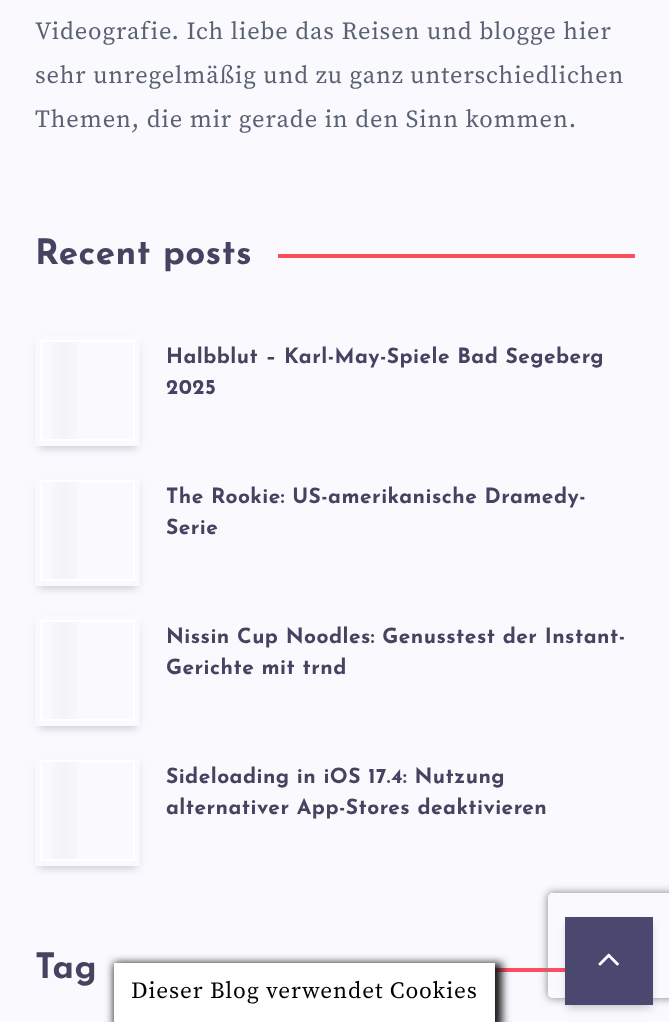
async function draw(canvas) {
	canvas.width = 669;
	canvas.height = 1022;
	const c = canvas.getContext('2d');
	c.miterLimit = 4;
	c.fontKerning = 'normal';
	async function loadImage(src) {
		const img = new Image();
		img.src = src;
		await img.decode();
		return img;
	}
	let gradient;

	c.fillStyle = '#f9f9fe';
	c.fillRect(0, 0, 669, 1022);
	c.letterSpacing = '0.9px';
	c.font = '24.5px Source Serif Pro';
	c.fillStyle = '#596172';
	for (const [text, x, y] of [
		['Videografie. Ich liebe das Reisen und blogge hier', 35, 39],
		['sehr unregelmäßig und zu ganz unterschiedlichen', 35, 83],
		['Themen, die mir gerade in den Sinn kommen.', 35, 127],
	]) {
		c.fillText(text, x, y);
	}
	c.letterSpacing = '0.45px';
	c.font = 'bold 35px Josefin Sans';
	c.fillStyle = '#454360';
	c.fillText('Recent posts', 35, 264);
	c.fillStyle = '#ff4c60';
	c.fillRect(278, 254, 357, 4);
	c.fillStyle = '#070a1933';
	c.filter = 'blur(4.5px)';
	c.beginPath();
	c.rect(39, 343, 98, 105);
	c.fill();
	c.filter = 'none';
	c.fillStyle = '#f9f9fe';
	c.fillRect(35, 336, 105, 110);
	gradient = c.createLinearGradient(42, 390, 88, 390);
	gradient.addColorStop(0, '#f9f9fe');
	gradient.addColorStop(0.5, '#f3f3f8');
	gradient.addColorStop(1, '#f9f9fe');
	c.fillStyle = gradient;
	c.fillRect(52, 342, 26, 97);
	c.strokeStyle = '#fff';
	c.lineWidth = 2;
	c.strokeRect(41, 341, 93, 99);
	c.font = 'bold 21px Josefin Sans';
	c.fillStyle = '#454360';
	c.fillText('Halbblut – Karl-May-Spiele Bad Segeberg', 166, 363);
	c.fillText('2025', 166, 394);
	c.fillStyle = '#070a1933';
	c.filter = 'blur(4.5px)';
	c.beginPath();
	c.rect(39, 483, 98, 105);
	c.fill();
	c.filter = 'none';
	c.fillStyle = '#f9f9fe';
	c.fillRect(35, 476, 105, 110);
	gradient = c.createLinearGradient(42, 530, 88, 530);
	gradient.addColorStop(0, '#f9f9fe');
	gradient.addColorStop(0.5, '#f3f3f8');
	gradient.addColorStop(1, '#f9f9fe');
	c.fillStyle = gradient;
	c.fillRect(52, 482, 26, 97);
	c.strokeRect(41, 481, 93, 99);
	c.fillStyle = '#454360';
	c.fillText('The Rookie: US-amerikanische Dramedy-', 166, 503);
	c.fillText('Serie', 166, 534);
	c.fillStyle = '#070a1933';
	c.filter = 'blur(4.5px)';
	c.beginPath();
	c.rect(39, 623, 98, 105);
	c.fill();
	c.filter = 'none';
	c.fillStyle = '#f9f9fe';
	c.fillRect(35, 616, 105, 110);
	gradient = c.createLinearGradient(42, 670, 88, 670);
	gradient.addColorStop(0, '#f9f9fe');
	gradient.addColorStop(0.5, '#f3f3f8');
	gradient.addColorStop(1, '#f9f9fe');
	c.fillStyle = gradient;
	c.fillRect(52, 622, 26, 97);
	c.strokeRect(41, 621, 93, 99);
	c.fillStyle = '#454360';
	c.fillText('Nissin Cup Noodles: Genusstest der Instant-', 166, 643);
	c.fillText('Gerichte mit trnd', 166, 674);
	c.fillStyle = '#070a1933';
	c.filter = 'blur(4.5px)';
	c.beginPath();
	c.rect(39, 763, 98, 105);
	c.fill();
	c.filter = 'none';
	c.fillStyle = '#f9f9fe';
	c.fillRect(35, 756, 105, 110);
	gradient = c.createLinearGradient(42, 810, 88, 810);
	gradient.addColorStop(0, '#f9f9fe');
	gradient.addColorStop(0.5, '#f3f3f8');
	gradient.addColorStop(1, '#f9f9fe');
	c.fillStyle = gradient;
	c.fillRect(52, 762, 26, 97);
	c.strokeRect(41, 761, 93, 99);
	c.fillStyle = '#454360';
	c.fillText('Sideloading in iOS 17.4: Nutzung', 166, 783);
	c.fillText('alternativer App-Stores deaktivieren', 166, 814);
	c.font = 'bold 35px Josefin Sans';
	c.fillText('Tag', 35, 978);
	c.fillStyle = '#ff4c60';
	c.fillRect(495, 968, 70, 4);
	c.fillStyle = '#070a1933';
	c.filter = 'blur(4.5px)';
	c.beginPath();
	c.rect(567, 924, 84, 84);
	c.fill();
	c.filter = 'none';
	c.save();
	c.beginPath();
	c.moveTo(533, 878);
	c.lineTo(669, 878);
	c.lineTo(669, 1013);
	c.lineTo(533, 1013);
	c.closePath();
	c.moveTo(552, 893);
	c.lineTo(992, 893);
	c.bezierCurveTo(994, 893, 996, 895, 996, 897);
	c.lineTo(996, 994);
	c.bezierCurveTo(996, 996, 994, 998, 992, 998);
	c.lineTo(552, 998);
	c.bezierCurveTo(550, 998, 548, 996, 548, 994);
	c.lineTo(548, 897);
	c.bezierCurveTo(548, 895, 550, 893, 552, 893);
	c.closePath();
	c.clip('evenodd');
	c.fillStyle = '#808080';
	c.filter = 'blur(4.5px)';
	c.beginPath();
	c.roundRect(548, 893, 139, 105, 4);
	c.fill();
	c.filter = 'none';
	c.restore();
	c.fillStyle = '#4b4870';
	c.fillRect(565, 917, 88, 88);
	c.drawImage(await loadImage('img1.png'), 598, 953, 21, 13);
	c.fillStyle = '#161616';
	c.filter = 'blur(4.5px)';
	c.beginPath();
	c.rect(114, 963, 388, 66);
	c.fill();
	c.filter = 'none';
	c.fillStyle = '#fff';
	c.fillRect(114, 963, 381, 59);
	c.letterSpacing = '0.9px';
	c.font = '23.3px Source Serif Pro';
	c.fillStyle = '#000';
	c.fillText('Dieser Blog verwendet Cookies', 131, 998);
}

draw(document.querySelector('canvas'));
